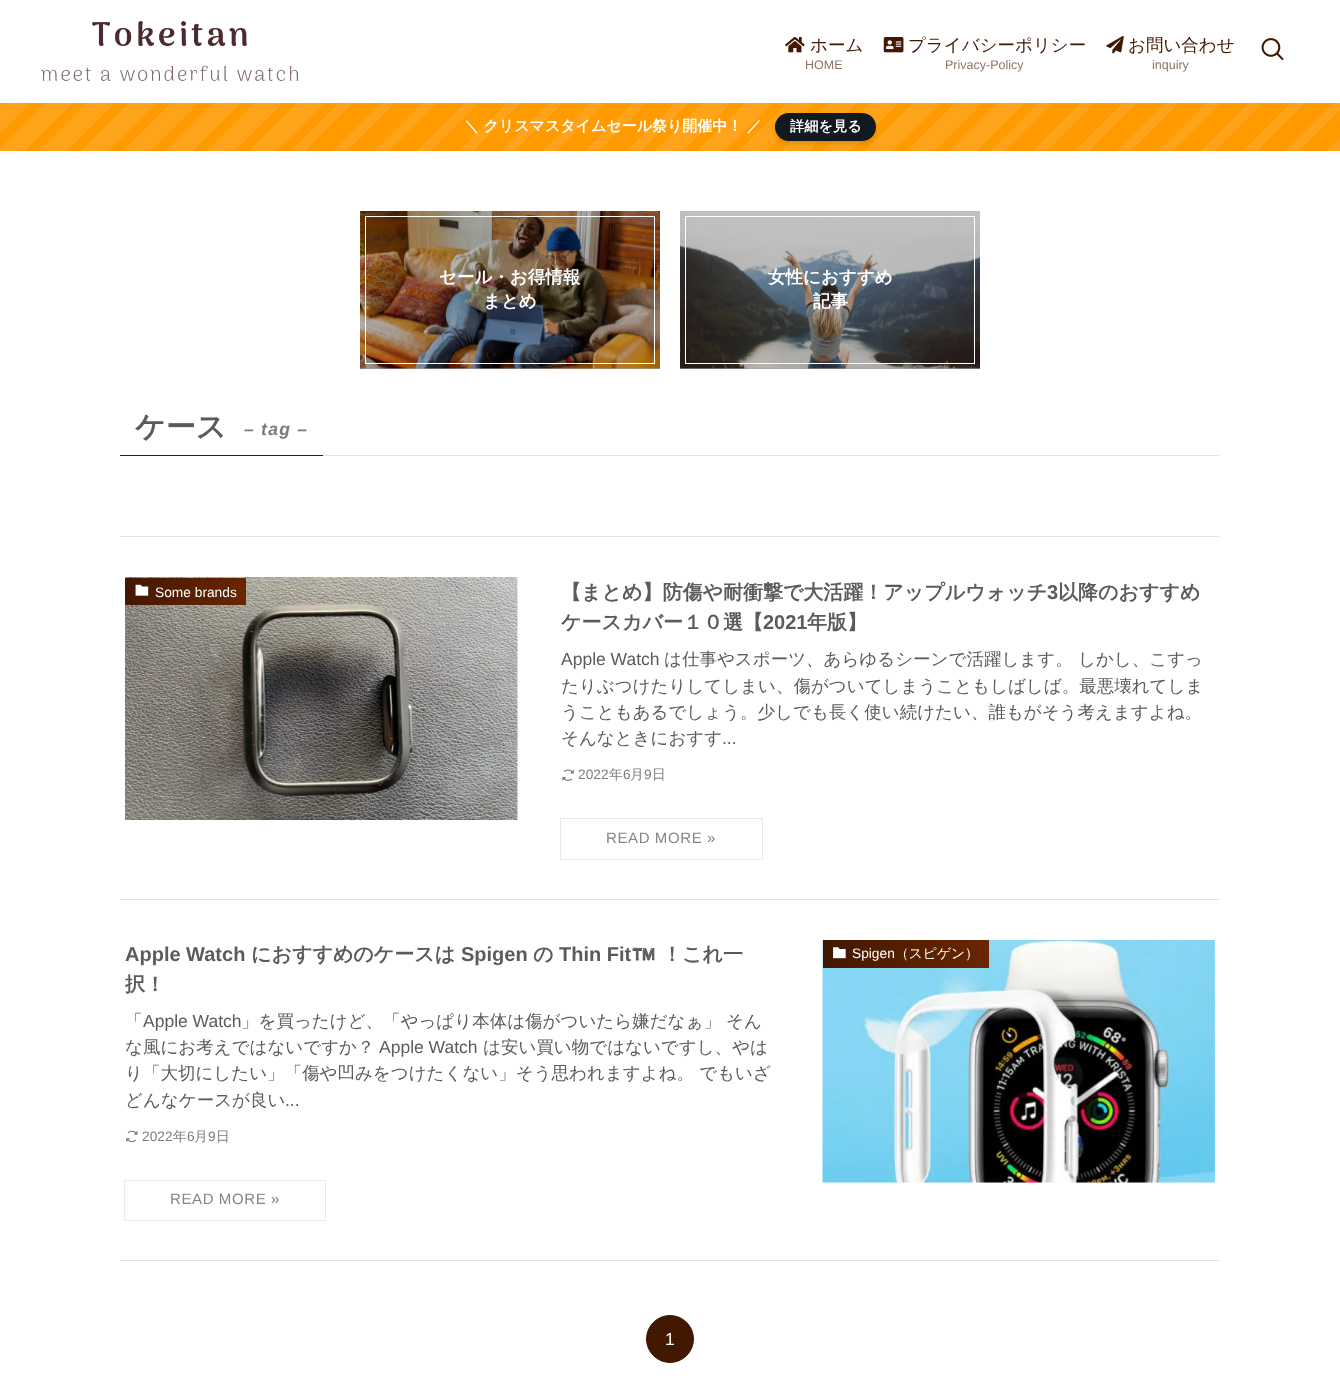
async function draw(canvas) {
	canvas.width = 1340;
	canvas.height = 1386;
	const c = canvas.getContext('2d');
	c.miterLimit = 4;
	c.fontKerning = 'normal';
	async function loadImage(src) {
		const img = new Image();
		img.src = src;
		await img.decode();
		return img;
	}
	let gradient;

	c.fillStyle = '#fff';
	c.fillRect(0, 0, 1340, 1386);
	c.drawImage(await loadImage('img1.png'), 41, 21, 258, 60);
	c.drawImage(await loadImage('img2.png'), 785, 37, 20, 16);
	c.font = '500 17.5px WenQuanYi Zen Hei';
	c.fillStyle = '#421800';
	c.fillText('ホーム', 810, 51);
	c.font = '12.5px Liberation Sans';
	c.fillStyle = '#8e7466';
	c.fillText('HOME', 805, 69);
	c.drawImage(await loadImage('img3.png'), 883, 37, 21, 16);
	c.font = '500 17.5px WenQuanYi Zen Hei';
	c.fillStyle = '#421800';
	c.fillText('プライバシーポリシー', 908, 51);
	c.font = '12.5px Liberation Sans';
	c.fillStyle = '#8e7466';
	c.fillText('Privacy-Policy', 945, 69);
	c.drawImage(await loadImage('img4.png'), 1106, 36, 18, 18);
	c.font = '500 17.5px WenQuanYi Zen Hei';
	c.fillStyle = '#421800';
	c.fillText('お問い合わせ', 1128, 51);
	c.font = '12.5px Liberation Sans';
	c.fillStyle = '#8e7466';
	c.fillText('inquiry', 1152, 69);
	c.drawImage(await loadImage('img5.png'), 1261, 38, 23, 22);
	gradient = c.createLinearGradient(1017, 474, 317, -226);
	gradient.addColorStop(0, '#ffa41a');
	gradient.addColorStop(0.01, '#ffa41a');
	gradient.addColorStop(0.01, '#ff9a01');
	gradient.addColorStop(0.02, '#ff9a01');
	gradient.addColorStop(0.02, '#ffa41a');
	gradient.addColorStop(0.02, '#ff9a01');
	gradient.addColorStop(0.03, '#ff9a01');
	gradient.addColorStop(0.03, '#ffa41a');
	gradient.addColorStop(0.04, '#ffa41a');
	gradient.addColorStop(0.04, '#ff9a01');
	gradient.addColorStop(0.05, '#ff9a01');
	gradient.addColorStop(0.05, '#ffa41a');
	gradient.addColorStop(0.05, '#ff9a01');
	gradient.addColorStop(0.06, '#ff9a01');
	gradient.addColorStop(0.06, '#ffa41a');
	gradient.addColorStop(0.07, '#ffa41a');
	gradient.addColorStop(0.07, '#ff9a01');
	gradient.addColorStop(0.08, '#ff9a01');
	gradient.addColorStop(0.08, '#ffa41a');
	gradient.addColorStop(0.08, '#ff9a01');
	gradient.addColorStop(0.09, '#ff9a01');
	gradient.addColorStop(0.09, '#ffa41a');
	gradient.addColorStop(0.1, '#ffa41a');
	gradient.addColorStop(0.1, '#ff9a01');
	gradient.addColorStop(0.11, '#ff9a01');
	gradient.addColorStop(0.11, '#ffa41a');
	gradient.addColorStop(0.11, '#ff9a01');
	gradient.addColorStop(0.12, '#ff9a01');
	gradient.addColorStop(0.12, '#ffa41a');
	gradient.addColorStop(0.13, '#ffa41a');
	gradient.addColorStop(0.13, '#ff9a01');
	gradient.addColorStop(0.14, '#ff9a01');
	gradient.addColorStop(0.14, '#ffa41a');
	gradient.addColorStop(0.14, '#ff9a01');
	gradient.addColorStop(0.15, '#ff9a01');
	gradient.addColorStop(0.15, '#ffa41a');
	gradient.addColorStop(0.16, '#ffa41a');
	gradient.addColorStop(0.16, '#ff9a01');
	gradient.addColorStop(0.17, '#ff9a01');
	gradient.addColorStop(0.17, '#ffa41a');
	gradient.addColorStop(0.17, '#ff9a01');
	gradient.addColorStop(0.18, '#ff9a01');
	gradient.addColorStop(0.18, '#ffa41a');
	gradient.addColorStop(0.19, '#ffa41a');
	gradient.addColorStop(0.19, '#ff9a01');
	gradient.addColorStop(0.2, '#ff9a01');
	gradient.addColorStop(0.2, '#ffa41a');
	gradient.addColorStop(0.2, '#ff9a01');
	gradient.addColorStop(0.21, '#ff9a01');
	gradient.addColorStop(0.21, '#ffa41a');
	gradient.addColorStop(0.22, '#ffa41a');
	gradient.addColorStop(0.22, '#ff9a01');
	gradient.addColorStop(0.23, '#ff9a01');
	gradient.addColorStop(0.23, '#ffa41a');
	gradient.addColorStop(0.23, '#ff9a01');
	gradient.addColorStop(0.24, '#ff9a01');
	gradient.addColorStop(0.24, '#ffa41a');
	gradient.addColorStop(0.25, '#ffa41a');
	gradient.addColorStop(0.25, '#ff9a01');
	gradient.addColorStop(0.26, '#ff9a01');
	gradient.addColorStop(0.26, '#ffa41a');
	gradient.addColorStop(0.27, '#ffa41a');
	gradient.addColorStop(0.27, '#ff9a01');
	gradient.addColorStop(0.27, '#ffa41a');
	gradient.addColorStop(0.28, '#ffa41a');
	gradient.addColorStop(0.28, '#ff9a01');
	gradient.addColorStop(0.29, '#ff9a01');
	gradient.addColorStop(0.29, '#ffa41a');
	gradient.addColorStop(0.3, '#ffa41a');
	gradient.addColorStop(0.3, '#ff9a01');
	gradient.addColorStop(0.3, '#ffa41a');
	gradient.addColorStop(0.31, '#ffa41a');
	gradient.addColorStop(0.31, '#ff9a01');
	gradient.addColorStop(0.32, '#ff9a01');
	gradient.addColorStop(0.32, '#ffa41a');
	gradient.addColorStop(0.33, '#ffa41a');
	gradient.addColorStop(0.33, '#ff9a01');
	gradient.addColorStop(0.33, '#ffa41a');
	gradient.addColorStop(0.34, '#ffa41a');
	gradient.addColorStop(0.34, '#ff9a01');
	gradient.addColorStop(0.35, '#ff9a01');
	gradient.addColorStop(0.35, '#ffa41a');
	gradient.addColorStop(0.36, '#ffa41a');
	gradient.addColorStop(0.36, '#ff9a01');
	gradient.addColorStop(0.36, '#ffa41a');
	gradient.addColorStop(0.37, '#ffa41a');
	gradient.addColorStop(0.37, '#ff9a01');
	gradient.addColorStop(0.38, '#ff9a01');
	gradient.addColorStop(0.38, '#ffa41a');
	gradient.addColorStop(0.39, '#ffa41a');
	gradient.addColorStop(0.39, '#ff9a01');
	gradient.addColorStop(0.39, '#ffa41a');
	gradient.addColorStop(0.4, '#ffa41a');
	gradient.addColorStop(0.4, '#ff9a01');
	gradient.addColorStop(0.41, '#ff9a01');
	gradient.addColorStop(0.41, '#ffa41a');
	gradient.addColorStop(0.42, '#ffa41a');
	gradient.addColorStop(0.42, '#ff9a01');
	gradient.addColorStop(0.42, '#ffa41a');
	gradient.addColorStop(0.43, '#ffa41a');
	gradient.addColorStop(0.43, '#ff9a01');
	gradient.addColorStop(0.44, '#ff9a01');
	gradient.addColorStop(0.44, '#ffa41a');
	gradient.addColorStop(0.45, '#ffa41a');
	gradient.addColorStop(0.45, '#ff9a01');
	gradient.addColorStop(0.45, '#ffa41a');
	gradient.addColorStop(0.46, '#ffa41a');
	gradient.addColorStop(0.46, '#ff9a01');
	gradient.addColorStop(0.47, '#ff9a01');
	gradient.addColorStop(0.47, '#ffa41a');
	gradient.addColorStop(0.48, '#ffa41a');
	gradient.addColorStop(0.48, '#ff9a01');
	gradient.addColorStop(0.48, '#ffa41a');
	gradient.addColorStop(0.49, '#ffa41a');
	gradient.addColorStop(0.49, '#ff9a01');
	gradient.addColorStop(0.5, '#ff9a01');
	gradient.addColorStop(0.5, '#ffa41a');
	gradient.addColorStop(0.51, '#ffa41a');
	gradient.addColorStop(0.51, '#ff9a01');
	gradient.addColorStop(0.52, '#ff9a01');
	gradient.addColorStop(0.52, '#ffa41a');
	gradient.addColorStop(0.52, '#ff9a01');
	gradient.addColorStop(0.53, '#ff9a01');
	gradient.addColorStop(0.53, '#ffa41a');
	gradient.addColorStop(0.54, '#ffa41a');
	gradient.addColorStop(0.54, '#ff9a01');
	gradient.addColorStop(0.55, '#ff9a01');
	gradient.addColorStop(0.55, '#ffa41a');
	gradient.addColorStop(0.55, '#ff9a01');
	gradient.addColorStop(0.56, '#ff9a01');
	gradient.addColorStop(0.56, '#ffa41a');
	gradient.addColorStop(0.57, '#ffa41a');
	gradient.addColorStop(0.57, '#ff9a01');
	gradient.addColorStop(0.58, '#ff9a01');
	gradient.addColorStop(0.58, '#ffa41a');
	gradient.addColorStop(0.58, '#ff9a01');
	gradient.addColorStop(0.59, '#ff9a01');
	gradient.addColorStop(0.59, '#ffa41a');
	gradient.addColorStop(0.6, '#ffa41a');
	gradient.addColorStop(0.6, '#ff9a01');
	gradient.addColorStop(0.61, '#ff9a01');
	gradient.addColorStop(0.61, '#ffa41a');
	gradient.addColorStop(0.61, '#ff9a01');
	gradient.addColorStop(0.62, '#ff9a01');
	gradient.addColorStop(0.62, '#ffa41a');
	gradient.addColorStop(0.63, '#ffa41a');
	gradient.addColorStop(0.63, '#ff9a01');
	gradient.addColorStop(0.64, '#ff9a01');
	gradient.addColorStop(0.64, '#ffa41a');
	gradient.addColorStop(0.64, '#ff9a01');
	gradient.addColorStop(0.65, '#ff9a01');
	gradient.addColorStop(0.65, '#ffa41a');
	gradient.addColorStop(0.66, '#ffa41a');
	gradient.addColorStop(0.66, '#ff9a01');
	gradient.addColorStop(0.67, '#ff9a01');
	gradient.addColorStop(0.67, '#ffa41a');
	gradient.addColorStop(0.67, '#ff9a01');
	gradient.addColorStop(0.68, '#ff9a01');
	gradient.addColorStop(0.68, '#ffa41a');
	gradient.addColorStop(0.69, '#ffa41a');
	gradient.addColorStop(0.69, '#ff9a01');
	gradient.addColorStop(0.7, '#ff9a01');
	gradient.addColorStop(0.7, '#ffa41a');
	gradient.addColorStop(0.7, '#ff9a01');
	gradient.addColorStop(0.71, '#ff9a01');
	gradient.addColorStop(0.71, '#ffa41a');
	gradient.addColorStop(0.72, '#ffa41a');
	gradient.addColorStop(0.72, '#ff9a01');
	gradient.addColorStop(0.73, '#ff9a01');
	gradient.addColorStop(0.73, '#ffa41a');
	gradient.addColorStop(0.73, '#ff9a01');
	gradient.addColorStop(0.74, '#ff9a01');
	gradient.addColorStop(0.74, '#ffa41a');
	gradient.addColorStop(0.75, '#ffa41a');
	gradient.addColorStop(0.75, '#ff9a01');
	gradient.addColorStop(0.76, '#ff9a01');
	gradient.addColorStop(0.76, '#ffa41a');
	gradient.addColorStop(0.77, '#ffa41a');
	gradient.addColorStop(0.77, '#ff9a01');
	gradient.addColorStop(0.77, '#ffa41a');
	gradient.addColorStop(0.78, '#ffa41a');
	gradient.addColorStop(0.78, '#ff9a01');
	gradient.addColorStop(0.79, '#ff9a01');
	gradient.addColorStop(0.79, '#ffa41a');
	gradient.addColorStop(0.8, '#ffa41a');
	gradient.addColorStop(0.8, '#ff9a01');
	gradient.addColorStop(0.8, '#ffa41a');
	gradient.addColorStop(0.81, '#ffa41a');
	gradient.addColorStop(0.81, '#ff9a01');
	gradient.addColorStop(0.82, '#ff9a01');
	gradient.addColorStop(0.82, '#ffa41a');
	gradient.addColorStop(0.83, '#ffa41a');
	gradient.addColorStop(0.83, '#ff9a01');
	gradient.addColorStop(0.83, '#ffa41a');
	gradient.addColorStop(0.84, '#ffa41a');
	gradient.addColorStop(0.84, '#ff9a01');
	gradient.addColorStop(0.85, '#ff9a01');
	gradient.addColorStop(0.85, '#ffa41a');
	gradient.addColorStop(0.86, '#ffa41a');
	gradient.addColorStop(0.86, '#ff9a01');
	gradient.addColorStop(0.86, '#ffa41a');
	gradient.addColorStop(0.87, '#ffa41a');
	gradient.addColorStop(0.87, '#ff9a01');
	gradient.addColorStop(0.88, '#ff9a01');
	gradient.addColorStop(0.88, '#ffa41a');
	gradient.addColorStop(0.89, '#ffa41a');
	gradient.addColorStop(0.89, '#ff9a01');
	gradient.addColorStop(0.89, '#ffa41a');
	gradient.addColorStop(0.9, '#ffa41a');
	gradient.addColorStop(0.9, '#ff9a01');
	gradient.addColorStop(0.91, '#ff9a01');
	gradient.addColorStop(0.91, '#ffa41a');
	gradient.addColorStop(0.92, '#ffa41a');
	gradient.addColorStop(0.92, '#ff9a01');
	gradient.addColorStop(0.92, '#ffa41a');
	gradient.addColorStop(0.93, '#ffa41a');
	gradient.addColorStop(0.93, '#ff9a01');
	gradient.addColorStop(0.94, '#ff9a01');
	gradient.addColorStop(0.94, '#ffa41a');
	gradient.addColorStop(0.95, '#ffa41a');
	gradient.addColorStop(0.95, '#ff9a01');
	gradient.addColorStop(0.95, '#ffa41a');
	gradient.addColorStop(0.96, '#ffa41a');
	gradient.addColorStop(0.96, '#ff9a01');
	gradient.addColorStop(0.97, '#ff9a01');
	gradient.addColorStop(0.97, '#ffa41a');
	gradient.addColorStop(0.98, '#ffa41a');
	gradient.addColorStop(0.98, '#ff9a01');
	gradient.addColorStop(0.98, '#ffa41a');
	gradient.addColorStop(0.99, '#ffa41a');
	gradient.addColorStop(0.99, '#ff9a01');
	gradient.addColorStop(1, '#ff9a01');
	c.fillStyle = gradient;
	c.fillRect(0, 103, 1340, 48);
	c.font = 'bold 15px WenQuanYi Zen Hei';
	c.fillStyle = '#fff';
	c.fillText('＼ クリスマスタイムセール祭り開催中！ ／', 464, 131);
	c.fillStyle = '#0000001f';
	c.filter = 'blur(2.5px)';
	c.beginPath();
	c.roundRect(775, 115, 101, 29, 14.5);
	c.fill();
	c.filter = 'none';
	c.fillStyle = '#131921';
	c.beginPath();
	c.roundRect(775, 113, 101, 28, 14);
	c.fill();
	c.font = 'bold 14.25px WenQuanYi Zen Hei';
	c.fillStyle = '#fff';
	c.fillText('詳細を見る', 790, 131);
	c.fillStyle = '#a3a3a3';
	c.fillRect(360, 368, 300, 1);
	c.drawImage(await loadImage('img6.png'), 360, 211, 300, 158);
	c.strokeStyle = '#fff';
	c.strokeRect(365.5, 216.5, 289, 147);
	c.font = 'bold 17.5px WenQuanYi Zen Hei';
	c.fillStyle = '#fff';
	c.fillText('セール・お得情報', 439, 283);
	c.fillText('まとめ', 483, 307);
	c.fillStyle = '#a3a3a3';
	c.fillRect(680, 368, 300, 1);
	c.drawImage(await loadImage('img7.png'), 680, 211, 300, 158);
	c.strokeRect(685.5, 216.5, 289, 147);
	c.fillStyle = '#fff';
	c.fillText('女性におすすめ', 768, 283);
	c.fillText('記事', 813, 307);
	c.fillStyle = '#e3e3e3';
	c.fillRect(323, 455, 897, 1);
	c.fillStyle = '#421800';
	c.fillRect(120, 455, 203, 1);
	c.font = 'bold 30px WenQuanYi Zen Hei';
	c.fillStyle = '#5b5b5b';
	c.fillText('ケース', 135, 437);
	c.letterSpacing = '1.25px';
	c.font = 'italic bold 17.5px Liberation Sans';
	c.fillStyle = '#7c7c7c';
	c.fillText('– tag –', 244, 435);
	c.fillStyle = '#e3e3e3';
	c.fillRect(120, 536, 1100, 1);
	c.fillRect(120, 899, 1100, 1);
	c.drawImage(await loadImage('img8.png'), 125, 577, 393, 243);
	gradient = c.createLinearGradient(124, 580, 247, 602);
	gradient.addColorStop(0, '#421800');
	gradient.addColorStop(1, '#6a2600');
	c.fillStyle = gradient;
	c.fillRect(125, 578, 121, 27);
	c.drawImage(await loadImage('img9.png'), 135, 584, 14, 12);
	c.letterSpacing = '0px';
	c.font = '13.75px Liberation Sans';
	c.fillStyle = '#fff';
	c.fillText('Some brands', 155, 597);
	c.font = 'bold 20px WenQuanYi Zen Hei';
	c.fillStyle = '#5b5b5b';
	c.fillText('【まとめ】防傷や耐衝撃で大活躍！アップルウォッチ', 561, 599);
	c.font = 'bold 20px Liberation Sans';
	c.fillText('3', 1047, 599);
	c.font = 'bold 20px WenQuanYi Zen Hei';
	c.fillText('以降のおすすめ', 1058, 599);
	c.fillText('ケースカバー１０選【', 561, 629);
	c.font = 'bold 20px Liberation Sans';
	c.fillText('2021', 763, 629);
	c.font = 'bold 20px WenQuanYi Zen Hei';
	c.fillText('年版】', 807, 629);
	c.font = '17.5px Liberation Sans';
	c.fillText('Apple Watch', 561, 665);
	c.font = '500 17.5px WenQuanYi Zen Hei';
	for (const [text, x, y] of [
		['は仕事やスポーツ、あらゆるシーンで活躍します。', 664, 665],
		['しかし、こすっ', 1078, 665],
		['たりぶつけたりしてしまい、傷がついてしまうこともしばしば。最悪壊れてしま', 561, 692],
		['うこともあるでしょう。少しでも長く使い続けたい、誰もがそう考えますよね。', 561, 718],
		['そんなときにおすす', 561, 744],
	]) {
		c.fillText(text, x, y);
	}
	c.font = '17.5px Liberation Sans';
	c.fillText('...', 722, 744);
	c.drawImage(await loadImage('img10.png'), 562, 769, 12, 12);
	c.font = '13.75px Liberation Sans';
	c.fillStyle = '#7c7c7c';
	c.fillText('2022', 578, 779);
	c.font = '500 13.75px WenQuanYi Zen Hei';
	c.fillText('年', 609, 779);
	c.font = '13.75px Liberation Sans';
	c.fillText('6', 623, 779);
	c.font = '500 13.75px WenQuanYi Zen Hei';
	c.fillText('月', 630, 779);
	c.font = '13.75px Liberation Sans';
	c.fillText('9', 644, 779);
	c.font = '500 13.75px WenQuanYi Zen Hei';
	c.fillText('日', 652, 779);
	c.strokeStyle = '#eaeaea';
	c.strokeRect(560.5, 818.5, 202, 41);
	c.letterSpacing = '0.6px';
	c.font = '15px Liberation Sans';
	c.fillStyle = '#848484';
	c.fillText('READ MORE »', 606, 843);
	c.fillStyle = '#e3e3e3';
	c.fillRect(120, 1260, 1100, 1);
	c.letterSpacing = '0px';
	c.font = 'bold 20px Liberation Sans';
	c.fillStyle = '#5b5b5b';
	c.fillText('Apple Watch', 125, 961);
	c.font = 'bold 20px WenQuanYi Zen Hei';
	c.fillText('におすすめのケースは', 251, 961);
	c.font = 'bold 20px Liberation Sans';
	c.fillText('Spigen', 461, 961);
	c.font = 'bold 20px WenQuanYi Zen Hei';
	c.fillText('の', 533, 961);
	c.font = 'bold 20px Liberation Sans';
	c.fillText('Thin Fit', 559, 961);
	c.font = 'bold 20px Noto Color Emoji';
	c.fillText('™️', 631, 961);
	c.font = 'bold 20px WenQuanYi Zen Hei';
	c.fillText('！これ一', 662, 961);
	c.fillText('択！', 125, 991);
	c.font = '500 17.5px WenQuanYi Zen Hei';
	c.fillText('「', 125, 1027);
	c.font = '17.5px Liberation Sans';
	c.fillText('Apple Watch', 143, 1027);
	c.font = '500 17.5px WenQuanYi Zen Hei';
	for (const [text, x, y] of [
		['」を買ったけど、「やっぱり本体は傷がついたら嫌だなぁ」', 241, 1027],
		['そん', 726, 1027],
		['な風にお考えではないですか？', 125, 1053],
	]) {
		c.fillText(text, x, y);
	}
	c.font = '17.5px Liberation Sans';
	c.fillText('Apple Watch', 379, 1053);
	c.font = '500 17.5px WenQuanYi Zen Hei';
	for (const [text, x, y] of [
		['は安い買い物ではないですし、やは', 483, 1053],
		['り「大切にしたい」「傷や凹みをつけたくない」そう思われますよね。 でもいざ', 125, 1079],
		['どんなケースが良い', 125, 1106],
	]) {
		c.fillText(text, x, y);
	}
	c.font = '17.5px Liberation Sans';
	c.fillText('...', 285, 1106);
	c.drawImage(await loadImage('img11.png'), 126, 1130, 12, 13);
	c.font = '13.75px Liberation Sans';
	c.fillStyle = '#7c7c7c';
	c.fillText('2022', 142, 1141);
	c.font = '500 13.75px WenQuanYi Zen Hei';
	c.fillText('年', 173, 1141);
	c.font = '13.75px Liberation Sans';
	c.fillText('6', 187, 1141);
	c.font = '500 13.75px WenQuanYi Zen Hei';
	c.fillText('月', 194, 1141);
	c.font = '13.75px Liberation Sans';
	c.fillText('9', 208, 1141);
	c.font = '500 13.75px WenQuanYi Zen Hei';
	c.fillText('日', 216, 1141);
	c.strokeRect(124.5, 1180.5, 201, 40);
	c.letterSpacing = '0.6px';
	c.font = '15px Liberation Sans';
	c.fillStyle = '#848484';
	c.fillText('READ MORE »', 170, 1204);
	c.drawImage(await loadImage('img12.png'), 822, 940, 393, 243);
	gradient = c.createLinearGradient(823, 939, 989, 968);
	gradient.addColorStop(0, '#421800');
	gradient.addColorStop(1, '#6a2600');
	c.fillStyle = gradient;
	c.fillRect(823, 940, 166, 28);
	c.drawImage(await loadImage('img13.png'), 833, 947, 13, 12);
	c.letterSpacing = '0px';
	c.font = '13.75px Liberation Sans';
	c.fillStyle = '#fff';
	c.fillText('Spigen', 852, 958);
	c.font = '500 13.75px WenQuanYi Zen Hei';
	c.fillText('（スピゲン）', 895, 958);
	c.fillStyle = '#421800';
	c.beginPath();
	c.arc(670, 1339, 23.5, 0, 2 * Math.PI);
	c.fill();
	c.strokeStyle = '#421800';
	c.stroke();
	c.font = '17.5px Liberation Sans';
	c.fillStyle = '#fff';
	c.fillText('1', 665, 1345);
}

draw(document.querySelector('canvas'));
